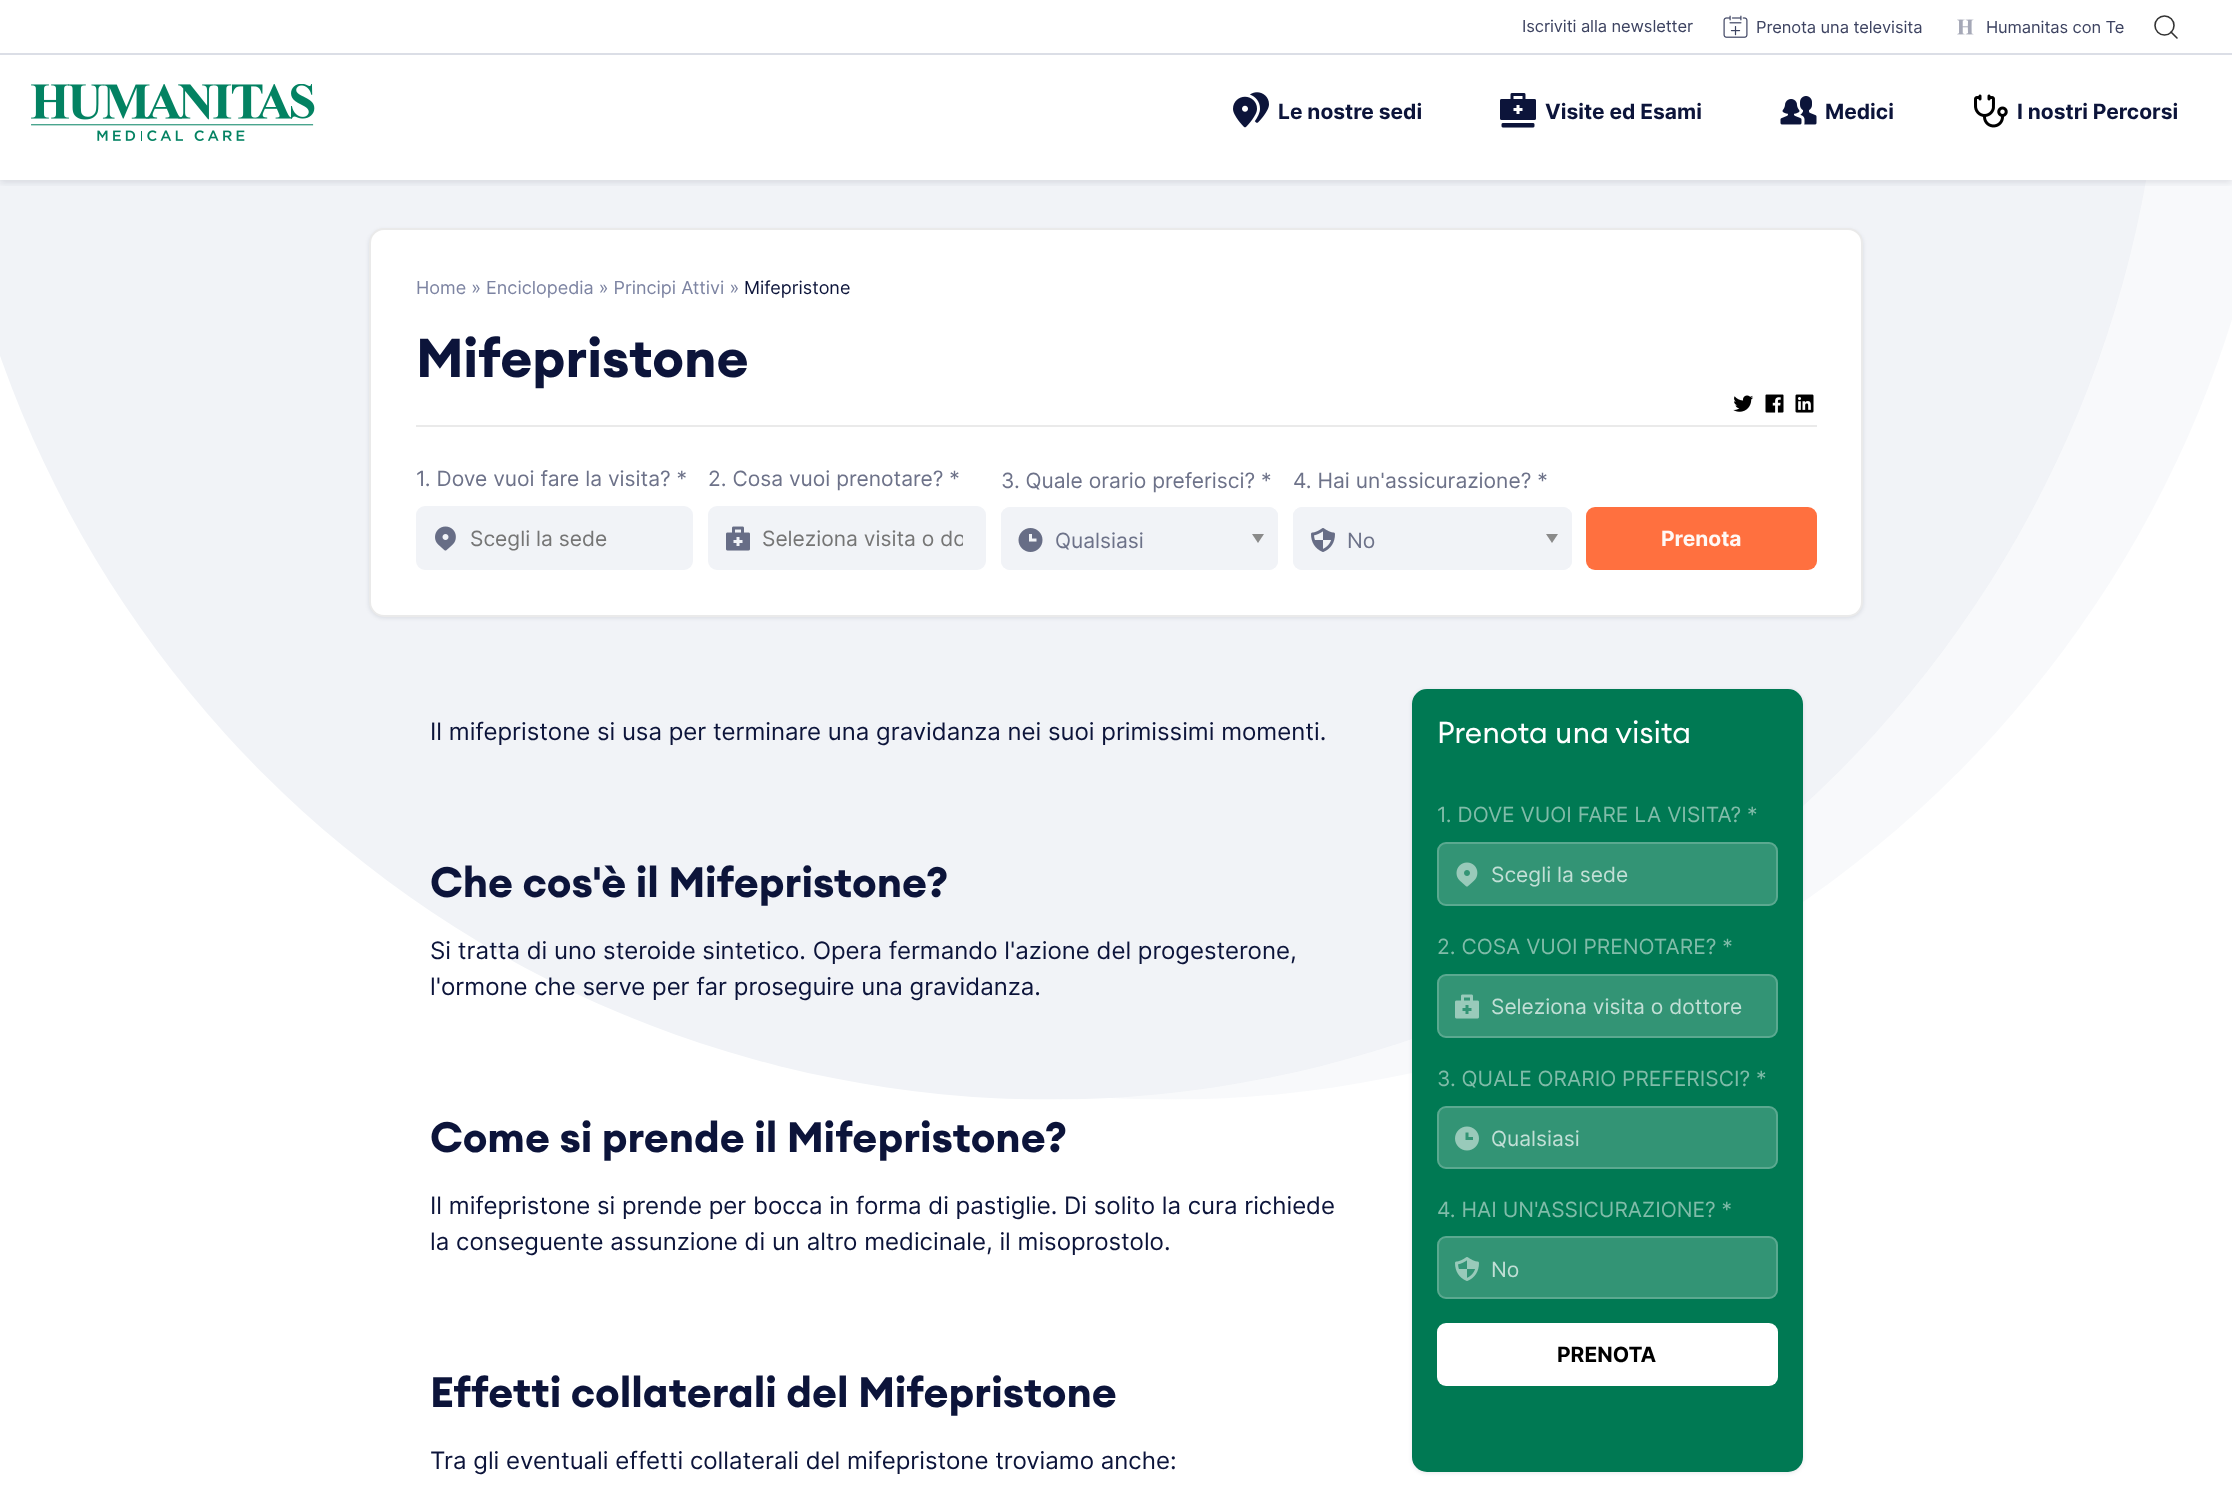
async function draw(canvas) {
	canvas.width = 2232;
	canvas.height = 1495;
	const c = canvas.getContext('2d');
	c.miterLimit = 4;
	c.fontKerning = 'normal';
	async function loadImage(src) {
		const img = new Image();
		img.src = src;
		await img.decode();
		return img;
	}

	c.fillStyle = '#fff';
	c.fillRect(0, 0, 2232, 1495);
	c.drawImage(await loadImage('img8.png'), 0, 180, 2232, 920);
	c.save();
	c.beginPath();
	c.rect(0, 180, 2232, 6);
	c.clip();
	c.fillStyle = '#0c122d1a';
	c.filter = 'blur(3px)';
	c.beginPath();
	c.rect(0, 3, 2232, 180);
	c.fill();
	c.filter = 'none';
	c.restore();
	c.fillStyle = '#dbdee6';
	c.fillRect(0, 53, 2232, 2);
	c.letterSpacing = '-0.1px';
	c.font = '16.5px Inter';
	c.fillStyle = '#3d4361';
	c.fillText('Iscriviti alla newsletter', 1522, 32);
	c.drawImage(await loadImage('img1.png'), 1723, 15, 25, 23);
	c.fillText('Prenota una televisita', 1756, 33);
	c.drawImage(await loadImage('img2.png'), 1957, 19, 17, 16);
	c.fillText('Humanitas con Te', 1986, 33);
	c.beginPath();
	c.arc(2164.5, 25.5, 9.5, 0, 2 * Math.PI);
	c.strokeStyle = '#333';
	c.lineWidth = 1.6;
	c.stroke();
	c.beginPath();
	c.moveTo(2177, 38);
	c.lineTo(2171, 32);
	c.lineCap = 'round';
	c.lineJoin = 'round';
	c.stroke();
	c.drawImage(await loadImage('img3.png'), 31, 84, 284, 57);
	c.drawImage(await loadImage('img4.png'), 1233, 92, 36, 36);
	c.letterSpacing = '0px';
	c.font = 'bold 21px Inter';
	c.fillStyle = '#0c143a';
	c.fillText('Le nostre sedi', 1278, 119);
	c.drawImage(await loadImage('img5.png'), 1500, 93, 36, 35);
	c.fillText('Visite ed Esami', 1545, 119);
	c.drawImage(await loadImage('img6.png'), 1780, 96, 37, 29);
	c.fillText('Medici', 1825, 119);
	c.drawImage(await loadImage('img7.png'), 1974, 94, 34, 34);
	c.fillText('I nostri Percorsi', 2017, 119);
	c.fillStyle = '#0c122d1a';
	c.filter = 'blur(2px)';
	c.beginPath();
	c.roundRect(369, 230, 1494, 388, 15);
	c.fill();
	c.filter = 'none';
	c.fillStyle = '#fff';
	c.beginPath();
	c.roundRect(370, 229, 1492, 387, 14);
	c.fill();
	c.strokeStyle = '#eaeaea';
	c.lineWidth = 2;
	c.lineJoin = 'miter';
	c.stroke();
	c.font = '18px Inter';
	c.fillStyle = '#7d84a2';
	c.fillText('Home » Enciclopedia » Principi Attivi »', 416, 294);
	c.fillStyle = '#0c143a';
	c.fillText('Mifepristone', 744, 294);
	c.font = 'bold 54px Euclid';
	c.fillText('Mifepristone', 416, 377);
	c.drawImage(await loadImage('img9.png'), 1733, 395, 21, 17);
	c.drawImage(await loadImage('img10.png'), 1765, 394, 19, 19);
	c.drawImage(await loadImage('img11.png'), 1795, 394, 19, 19);
	c.fillStyle = '#eaeaea';
	c.fillRect(416, 425, 1401, 2);
	c.font = '21px Inter';
	c.fillStyle = '#6d7289';
	c.fillText('1. Dove vuoi fare la visita? *', 416, 486);
	c.fillStyle = '#f1f3f7';
	c.beginPath();
	c.roundRect(417, 507, 275, 62, 8);
	c.fill();
	c.strokeStyle = '#f1f3f7';
	c.stroke();
	c.drawImage(await loadImage('img12.png'), 435, 526, 21, 25);
	c.fillStyle = '#757575';
	c.fillText('Scegli la sede', 470, 546);
	c.fillStyle = '#6d7289';
	c.fillText('2. Cosa vuoi prenotare? *', 708, 486);
	c.fillStyle = '#f1f3f7';
	c.beginPath();
	c.roundRect(709, 507, 276, 62, 8);
	c.fill();
	c.stroke();
	c.drawImage(await loadImage('img13.png'), 726, 526, 24, 25);
	c.save();
	c.beginPath();
	c.rect(762, 525, 201, 26);
	c.clip();
	c.fillStyle = '#757575';
	c.fillText('Seleziona visita o do', 762, 546);
	c.restore();
	c.fillStyle = '#6d7289';
	c.fillText('3. Quale orario preferisci? *', 1001, 488);
	c.fillStyle = '#f1f3f7';
	c.beginPath();
	c.roundRect(1001, 507, 277, 63, 9);
	c.fill();
	c.fillStyle = '#8a8a8a';
	c.beginPath();
	c.moveTo(1252, 534);
	c.lineTo(1264, 534);
	c.lineTo(1258, 543);
	c.closePath();
	c.fill();
	c.beginPath();
	c.roundRect(1002, 508, 275, 61, 8);
	c.stroke();
	c.drawImage(await loadImage('img14.png'), 1018, 528, 25, 24);
	c.fillStyle = '#6d7289';
	c.fillText('Qualsiasi', 1055, 548);
	c.fillText('4. Hai un\'assicurazione? *', 1293, 488);
	c.fillStyle = '#f1f3f7';
	c.beginPath();
	c.roundRect(1293, 507, 279, 63, 9);
	c.fill();
	c.fillStyle = '#8a8a8a';
	c.beginPath();
	c.moveTo(1546, 534);
	c.lineTo(1558, 534);
	c.lineTo(1552, 543);
	c.closePath();
	c.fill();
	c.beginPath();
	c.roundRect(1294, 508, 277, 61, 8);
	c.stroke();
	c.drawImage(await loadImage('img15.png'), 1311, 528, 24, 24);
	c.fillStyle = '#6d7289';
	c.fillText('No', 1347, 548);
	c.fillStyle = '#ff703f';
	c.beginPath();
	c.roundRect(1586, 507, 231, 63, 9);
	c.fill();
	c.font = 'bold 21px Inter';
	c.fillStyle = '#fff8f5';
	c.fillText('Prenota', 1661, 546);
	c.font = '24px Inter';
	c.fillStyle = '#0c143a';
	c.fillText('Il mifepristone si usa per terminare una gravidanza nei suoi primissimi momenti.', 430, 740);
	c.font = 'bold 42px Euclid';
	c.fillText('Che cos\'è il Mifepristone?', 430, 897);
	c.font = '24px Inter';
	c.fillText('Si tratta di uno steroide sintetico. Opera fermando l\'azione del progesterone,', 430, 959);
	c.fillText('l\'ormone che serve per far proseguire una gravidanza.', 430, 995);
	c.font = 'bold 42px Euclid';
	c.fillText('Come si prende il Mifepristone?', 430, 1152);
	c.font = '24px Inter';
	c.fillText('Il mifepristone si prende per bocca in forma di pastiglie. Di solito la cura richiede', 430, 1214);
	c.fillText('la conseguente assunzione di un altro medicinale, il misoprostolo.', 430, 1250);
	c.font = 'bold 42px Euclid';
	c.fillText('Effetti collaterali del Mifepristone', 430, 1407);
	c.font = '24px Inter';
	c.fillText('Tra gli eventuali effetti collaterali del mifepristone troviamo anche:', 430, 1469);
	c.fillStyle = '#0c122d1a';
	c.filter = 'blur(2px)';
	c.beginPath();
	c.roundRect(1412, 690, 391, 783, 15);
	c.fill();
	c.filter = 'none';
	c.fillStyle = '#007953';
	c.beginPath();
	c.roundRect(1413, 690, 389, 781, 14);
	c.fill();
	c.strokeStyle = '#007953';
	c.stroke();
	c.font = '30px Euclid';
	c.fillStyle = '#fff';
	c.fillText('Prenota una visita', 1437, 743);
	c.font = '21px Inter';
	c.fillStyle = '#80bca9';
	c.fillText('1. DOVE VUOI FARE LA VISITA? *', 1437, 822);
	c.fillStyle = '#339475';
	c.beginPath();
	c.roundRect(1437, 842, 341, 64, 9);
	c.fill();
	c.beginPath();
	c.roundRect(1438, 843, 339, 62, 8);
	c.strokeStyle = '#ffffff33';
	c.stroke();
	c.drawImage(await loadImage('img16.png'), 1456, 862, 22, 25);
	c.fillStyle = '#c2dfd6';
	c.fillText('Scegli la sede', 1491, 882);
	c.fillStyle = '#80bca9';
	c.fillText('2. COSA VUOI PRENOTARE? *', 1437, 954);
	c.fillStyle = '#339475';
	c.beginPath();
	c.roundRect(1437, 974, 341, 64, 9);
	c.fill();
	c.beginPath();
	c.roundRect(1438, 975, 339, 62, 8);
	c.stroke();
	c.drawImage(await loadImage('img17.png'), 1455, 994, 24, 25);
	c.fillStyle = '#c2dfd6';
	c.fillText('Seleziona visita o dottore', 1491, 1014);
	c.fillStyle = '#80bca9';
	c.fillText('3. QUALE ORARIO PREFERISCI? *', 1437, 1086);
	c.fillStyle = '#339475';
	c.beginPath();
	c.roundRect(1437, 1106, 341, 63, 9);
	c.fill();
	c.beginPath();
	c.roundRect(1438, 1107, 339, 61, 8);
	c.stroke();
	c.drawImage(await loadImage('img18.png'), 1455, 1126, 24, 25);
	c.fillStyle = '#c2dfd6';
	c.fillText('Qualsiasi', 1491, 1146);
	c.fillStyle = '#80bca9';
	c.fillText('4. HAI UN\'ASSICURAZIONE? *', 1437, 1217);
	c.fillStyle = '#339475';
	c.beginPath();
	c.roundRect(1437, 1236, 341, 63, 9);
	c.fill();
	c.beginPath();
	c.roundRect(1438, 1237, 339, 61, 8);
	c.stroke();
	c.drawImage(await loadImage('img19.png'), 1455, 1257, 24, 24);
	c.fillStyle = '#c2dfd6';
	c.fillText('No', 1491, 1277);
	c.fillStyle = '#fff';
	c.beginPath();
	c.roundRect(1437, 1323, 341, 63, 9);
	c.fill();
	c.font = 'bold 21px Inter';
	c.fillStyle = '#000';
	c.fillText('PRENOTA', 1557, 1362);
}

draw(document.querySelector('canvas'));
